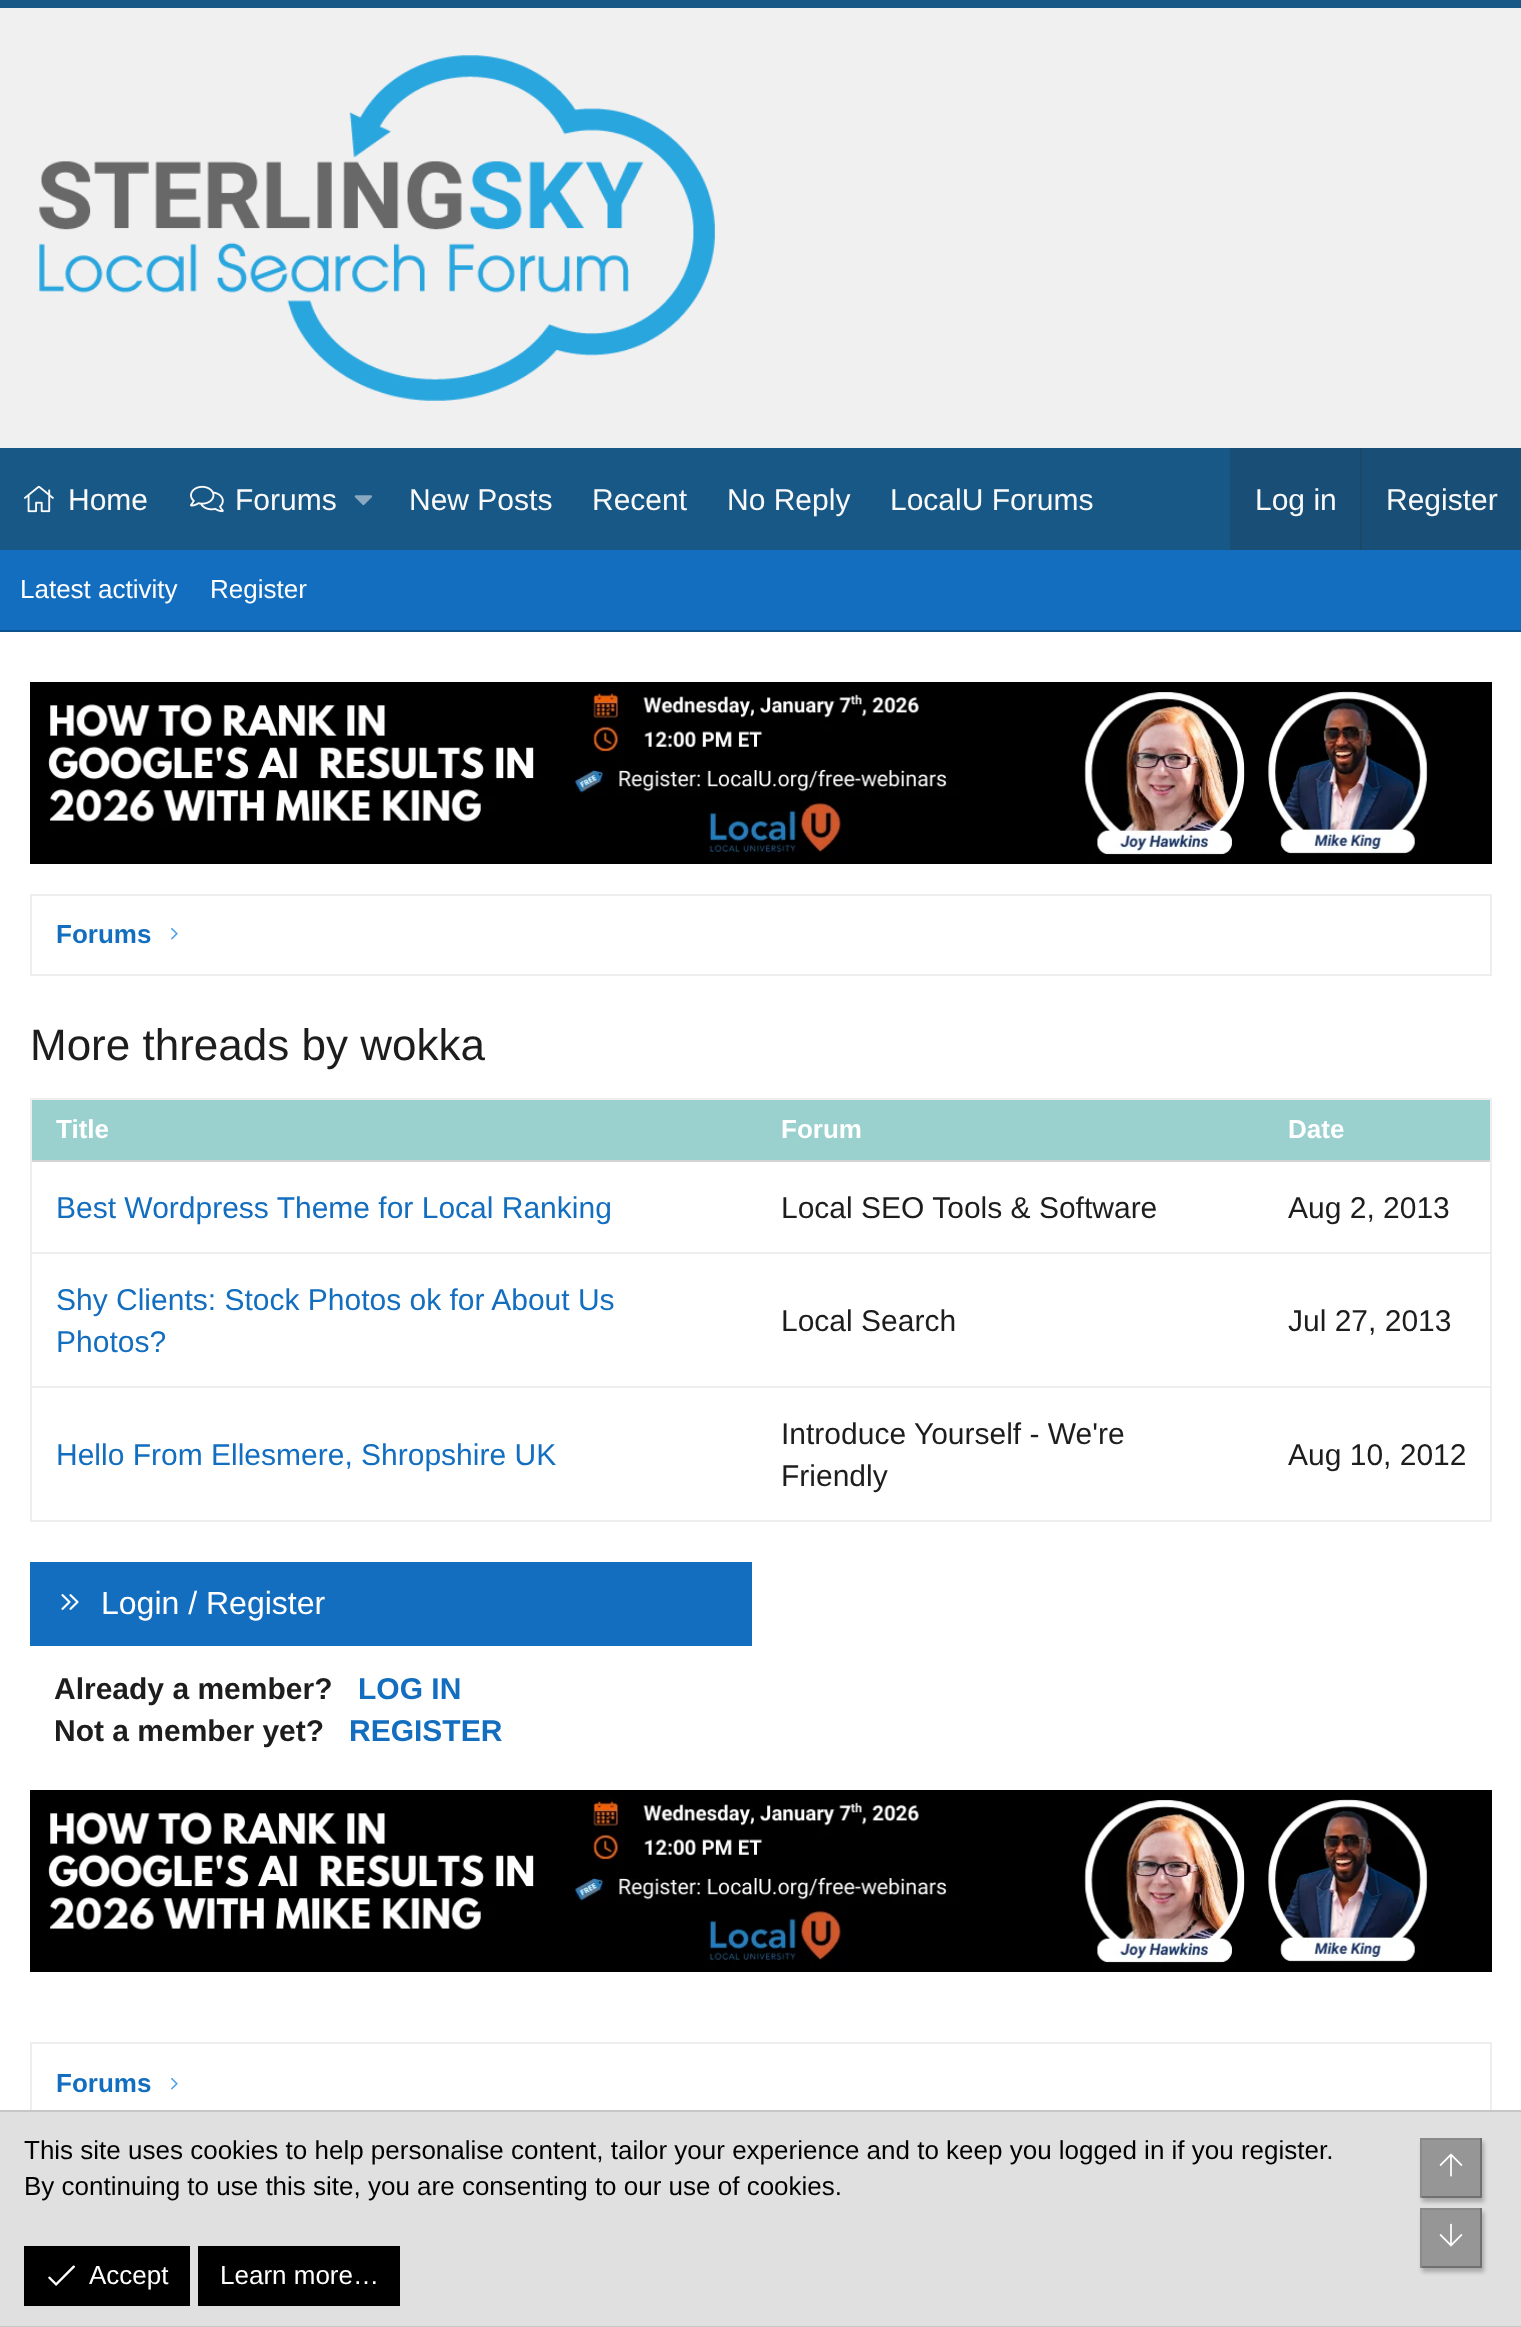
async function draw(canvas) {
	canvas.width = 1521;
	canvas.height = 2327;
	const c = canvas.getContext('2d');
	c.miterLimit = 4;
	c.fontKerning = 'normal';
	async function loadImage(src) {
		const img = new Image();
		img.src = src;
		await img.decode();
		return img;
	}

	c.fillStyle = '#f0f0f0';
	c.fillRect(0, 0, 1521, 2327);
	c.fillStyle = '#185886';
	c.fillRect(0, 0, 1521, 8);
	c.drawImage(await loadImage('img1.png'), 39, 55, 676, 346);
	c.fillRect(0, 448, 1230, 102);
	c.drawImage(await loadImage('img2.png'), 23, 485, 31, 28);
	c.font = '30px Liberation Sans';
	c.fillStyle = '#f9f9f9';
	c.fillText('Home', 68, 510);
	c.drawImage(await loadImage('img3.png'), 190, 485, 34, 28);
	c.fillText('Forums', 235, 510);
	c.drawImage(await loadImage('img4.png'), 354, 495, 18, 11);
	for (const [text, x, y] of [
		['New Posts', 409, 510],
		['Recent', 592, 510],
		['No Reply', 727, 510],
		['LocalU Forums', 890, 510],
	]) {
		c.fillText(text, x, y);
	}
	c.fillStyle = '#194f76';
	c.fillRect(1230, 448, 291, 102);
	c.fillStyle = '#f9f9f9';
	c.fillText('Log in', 1255, 510);
	c.fillStyle = '#1a4869';
	c.fillRect(1360, 448, 2, 102);
	c.fillStyle = '#f9f9f9';
	c.fillText('Register', 1386, 510);
	c.fillStyle = '#136ebf';
	c.fillRect(0, 550, 1521, 80);
	c.fillStyle = '#0e5391';
	c.fillRect(0, 630, 1521, 2);
	c.font = '26px Liberation Sans';
	c.fillStyle = '#fff';
	c.fillText('Latest activity', 20, 598);
	c.fillText('Register', 210, 598);
	c.fillRect(0, 632, 1521, 1478);
	c.drawImage(await loadImage('img5.png'), 30, 682, 1462, 182);
	c.strokeStyle = '#eee';
	c.lineWidth = 2;
	c.strokeRect(31, 895, 1460, 80);
	c.font = 'bold 26px Liberation Sans';
	c.fillStyle = '#136ebf';
	c.fillText('Forums', 56, 943);
	c.drawImage(await loadImage('img6.png'), 171, 927, 7, 13);
	c.font = '44px Liberation Sans';
	c.fillStyle = '#1d1d1d';
	c.fillText('More threads by wokka', 30, 1060);
	c.strokeRect(31, 1099, 1460, 422);
	c.fillStyle = '#9ad1ce';
	c.fillRect(32, 1100, 1458, 60);
	c.fillStyle = '#d5d5d5';
	c.fillRect(32, 1160, 1458, 2);
	c.font = 'bold 26px Liberation Sans';
	c.fillStyle = '#fff';
	for (const [text, x, y] of [
		['Title', 56, 1138],
		['Forum', 781, 1138],
		['Date', 1288, 1138],
	]) {
		c.fillText(text, x, y);
	}
	c.fillStyle = '#eee';
	c.fillRect(32, 1252, 1458, 2);
	c.font = '30px Liberation Sans';
	c.fillStyle = '#136ebf';
	c.fillText('Best Wordpress Theme for Local Ranking', 56, 1218);
	c.fillStyle = '#1d1d1d';
	c.fillText('Local SEO Tools & Software', 781, 1218);
	c.fillText('Aug 2, 2013', 1288, 1218);
	c.fillStyle = '#eee';
	c.fillRect(32, 1386, 1458, 2);
	c.fillStyle = '#136ebf';
	c.fillText('Shy Clients: Stock Photos ok for About Us', 56, 1310);
	c.fillText('Photos?', 56, 1352);
	c.fillStyle = '#1d1d1d';
	c.fillText('Local Search', 781, 1331);
	c.fillText('Jul 27, 2013', 1288, 1331);
	c.fillStyle = '#136ebf';
	c.fillText('Hello From Ellesmere, Shropshire UK', 56, 1465);
	c.fillStyle = '#1d1d1d';
	for (const [text, x, y] of [
		['Introduce Yourself - We\'re', 781, 1444],
		['Friendly', 781, 1486],
		['Aug 10, 2012', 1288, 1465],
	]) {
		c.fillText(text, x, y);
	}
	c.fillStyle = '#136ebf';
	c.fillRect(30, 1562, 722, 84);
	c.drawImage(await loadImage('img7.png'), 61, 1594, 18, 16);
	c.font = '32px Liberation Sans';
	c.fillStyle = '#fff';
	c.fillText('Login / Register', 101, 1614);
	c.font = 'bold 30px Liberation Sans';
	c.fillStyle = '#1d1d1d';
	c.fillText('Already a member?', 54, 1699);
	c.fillStyle = '#136ebf';
	c.fillText('LOG IN', 358, 1699);
	c.fillStyle = '#1d1d1d';
	c.fillText('Not a member yet?', 54, 1741);
	c.fillStyle = '#136ebf';
	c.fillText('REGISTER', 349, 1741);
	c.drawImage(await loadImage('img5.png'), 30, 1790, 1462, 182);
	c.strokeRect(31, 2043, 1460, 80);
	c.font = 'bold 26px Liberation Sans';
	c.fillText('Forums', 56, 2092);
	c.drawImage(await loadImage('img6.png'), 171, 2077, 7, 13);
	for (const [x, y, w, h, color] of [
		[0, 2112, 1521, 214, '#e0e0e0'],
		[0, 2110, 1521, 2, '#c7c7c7'],
		[0, 2326, 1521, 1, '#c7c7c7'],
	]) {
		c.fillStyle = color;
		c.fillRect(x, y, w, h);
	}
	c.font = '26px Liberation Sans';
	c.fillStyle = '#000';
	c.fillText('This site uses cookies to help personalise content, tailor your experience and to keep you logged in if you register.', 24, 2159);
	c.fillText('By continuing to use this site, you are consenting to our use of cookies.', 24, 2195);
	c.fillRect(24, 2246, 166, 60);
	c.drawImage(await loadImage('img8.png'), 48, 2265, 27, 21);
	c.fillStyle = '#fff';
	c.fillText('Accept', 89, 2284);
	c.fillStyle = '#000';
	c.fillRect(198, 2246, 202, 60);
	c.fillStyle = '#fff';
	c.fillText('Learn more…', 220, 2284);
	c.fillStyle = '#00000040';
	c.filter = 'blur(2px)';
	c.beginPath();
	c.rect(1422, 2142, 62, 60);
	c.fill();
	c.filter = 'none';
	for (const [x, y, w, h, color] of [
		[1422, 2140, 58, 56, '#969696'],
		[1420, 2138, 62, 2, '#8a8a8a'],
		[1480, 2138, 2, 60, '#707070'],
		[1420, 2196, 62, 2, '#707070'],
		[1420, 2138, 2, 60, '#8a8a8a'],
	]) {
		c.fillStyle = color;
		c.fillRect(x, y, w, h);
	}
	c.drawImage(await loadImage('img9.png'), 1439, 2153, 24, 24);
	c.fillStyle = '#00000040';
	c.filter = 'blur(2px)';
	c.beginPath();
	c.rect(1422, 2212, 62, 60);
	c.fill();
	c.filter = 'none';
	for (const [x, y, w, h, color] of [
		[1422, 2210, 58, 56, '#969696'],
		[1420, 2208, 62, 2, '#8a8a8a'],
		[1480, 2208, 2, 60, '#707070'],
		[1420, 2266, 62, 2, '#707070'],
		[1420, 2208, 2, 60, '#8a8a8a'],
	]) {
		c.fillStyle = color;
		c.fillRect(x, y, w, h);
	}
	c.drawImage(await loadImage('img10.png'), 1439, 2223, 24, 24);
}

draw(document.querySelector('canvas'));
